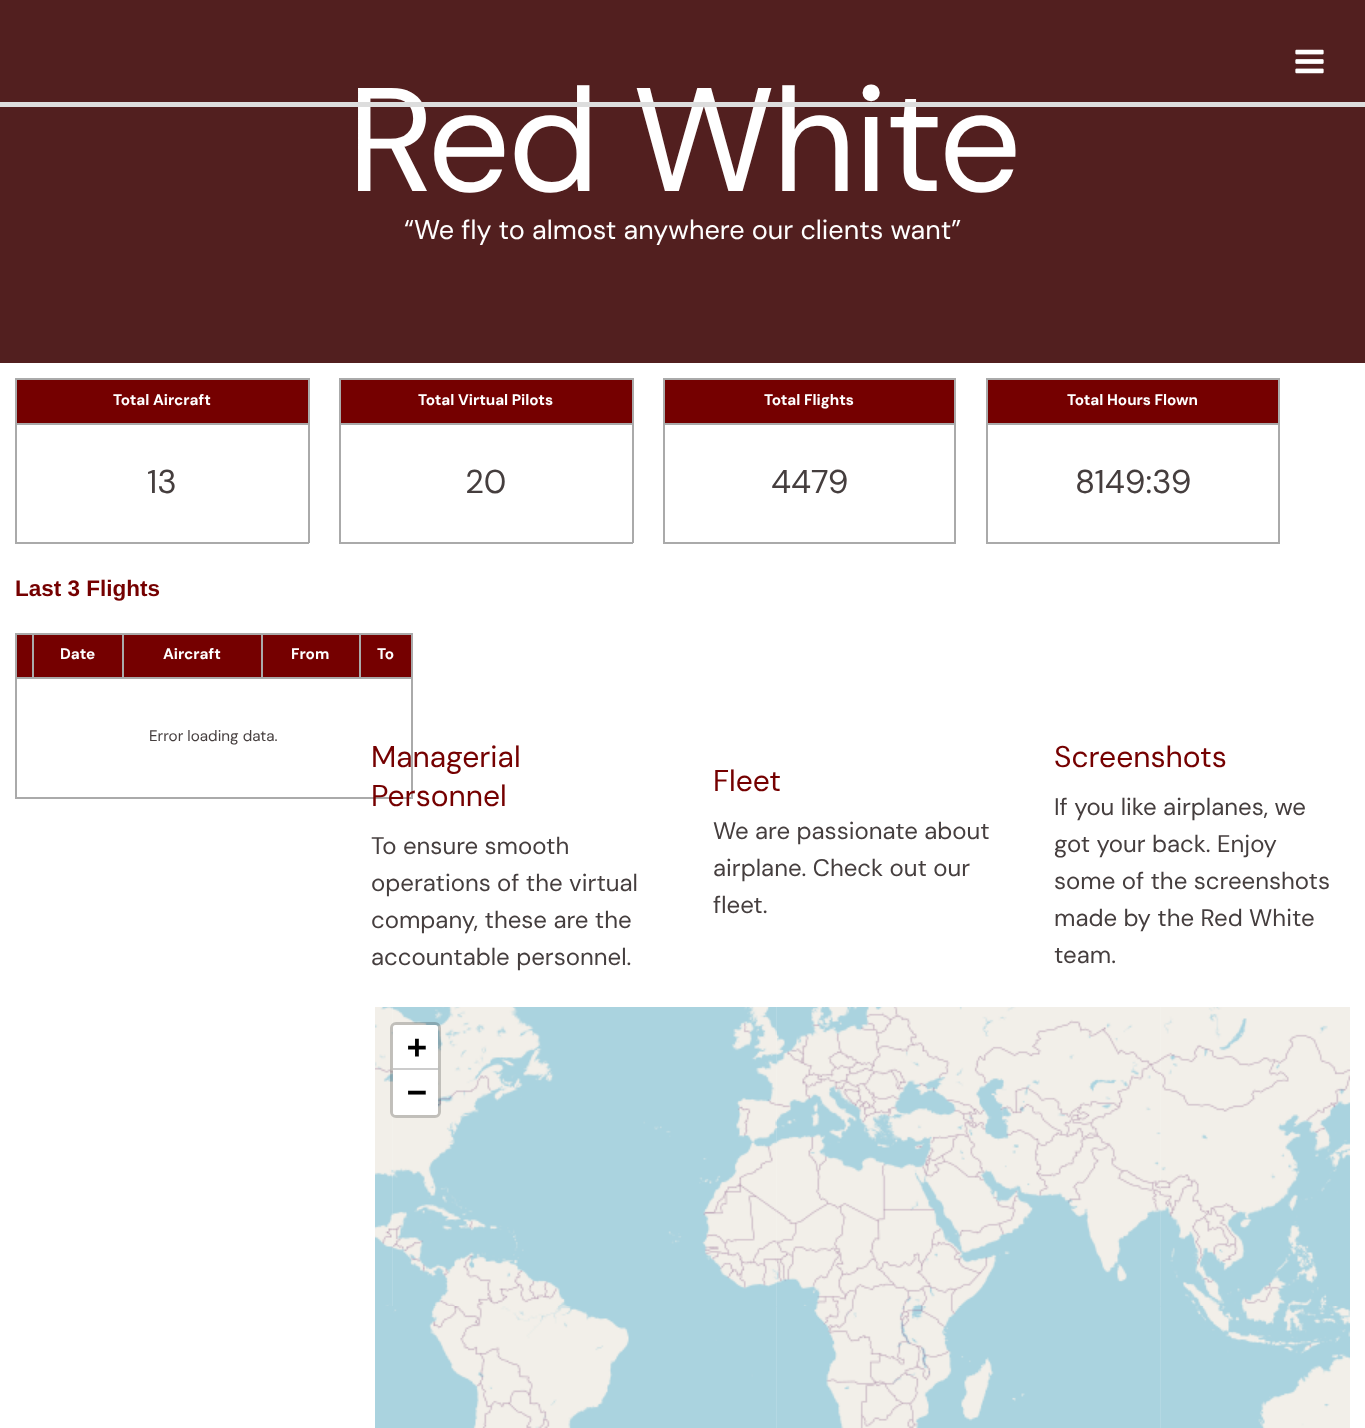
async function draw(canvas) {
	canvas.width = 1365;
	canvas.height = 1428;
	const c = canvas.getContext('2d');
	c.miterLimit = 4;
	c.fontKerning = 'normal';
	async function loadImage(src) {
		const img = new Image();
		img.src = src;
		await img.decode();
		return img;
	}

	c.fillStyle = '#fff';
	c.fillRect(0, 0, 1365, 1428);
	c.fillStyle = '#521f1f';
	c.fillRect(0, 0, 1365, 363);
	c.letterSpacing = '-3px';
	c.font = '147px DM Sans';
	c.fillStyle = '#fff';
	c.fillText('Red White', 347, 191);
	c.fillStyle = '#ddd';
	c.fillRect(0, 102, 1365, 5);
	c.drawImage(await loadImage('img1.png'), 1295, 49, 29, 25);
	c.letterSpacing = '0px';
	c.font = '27px DM Sans';
	c.fillStyle = '#fff';
	c.fillText('“We fly to almost anywhere our clients want”', 404, 239);
	for (const [x, y, w, h, color] of [
		[17, 380, 291, 43, '#750000'],
		[15, 378, 294, 2, '#aaa'],
		[15, 423, 294, 2, '#aaa'],
		[308, 423, 2, 120, '#aaa'],
		[308, 378, 2, 47, '#aaa'],
		[15, 542, 294, 2, '#aaa'],
		[15, 423, 2, 120, '#aaa'],
		[15, 378, 2, 47, '#aaa'],
	]) {
		c.fillStyle = color;
		c.fillRect(x, y, w, h);
	}
	c.font = 'bold 15.25px DM Sans';
	c.fillStyle = '#fff';
	c.fillText('Total Aircraft', 113, 405);
	c.font = '33px DM Sans';
	c.fillStyle = '#453e3e';
	c.fillText('13', 147, 493);
	for (const [x, y, w, h, color] of [
		[341, 380, 291, 43, '#750000'],
		[339, 378, 294, 2, '#aaa'],
		[339, 423, 294, 2, '#aaa'],
		[632, 423, 2, 120, '#aaa'],
		[632, 378, 2, 47, '#aaa'],
		[339, 542, 294, 2, '#aaa'],
		[339, 423, 2, 120, '#aaa'],
		[339, 378, 2, 47, '#aaa'],
	]) {
		c.fillStyle = color;
		c.fillRect(x, y, w, h);
	}
	c.font = 'bold 15.25px DM Sans';
	c.fillStyle = '#fff';
	c.fillText('Total Virtual Pilots', 418, 405);
	c.font = '33px DM Sans';
	c.fillStyle = '#453e3e';
	c.fillText('20', 465, 493);
	for (const [x, y, w, h, color] of [
		[665, 380, 289, 43, '#750000'],
		[663, 378, 293, 2, '#aaa'],
		[663, 423, 293, 2, '#aaa'],
		[954, 423, 2, 120, '#aaa'],
		[954, 378, 2, 47, '#aaa'],
		[663, 542, 293, 2, '#aaa'],
		[663, 423, 2, 120, '#aaa'],
		[663, 378, 2, 47, '#aaa'],
	]) {
		c.fillStyle = color;
		c.fillRect(x, y, w, h);
	}
	c.font = 'bold 15.25px DM Sans';
	c.fillStyle = '#fff';
	c.fillText('Total Flights', 764, 405);
	c.font = '33px DM Sans';
	c.fillStyle = '#453e3e';
	c.fillText('4479', 771, 493);
	for (const [x, y, w, h, color] of [
		[988, 380, 290, 43, '#750000'],
		[986, 378, 294, 2, '#aaa'],
		[986, 423, 294, 2, '#aaa'],
		[1278, 423, 2, 120, '#aaa'],
		[1278, 378, 2, 47, '#aaa'],
		[986, 542, 294, 2, '#aaa'],
		[986, 423, 2, 120, '#aaa'],
		[986, 378, 2, 47, '#aaa'],
	]) {
		c.fillStyle = color;
		c.fillRect(x, y, w, h);
	}
	c.font = 'bold 15.25px DM Sans';
	c.fillStyle = '#fff';
	c.fillText('Total Hours Flown', 1067, 405);
	c.font = '33px DM Sans';
	c.fillStyle = '#453e3e';
	c.fillText('8149:39', 1075, 493);
	c.font = 'bold 22.5px Liberation Sans';
	c.fillStyle = '#750000';
	c.fillText('Last 3 Flights', 15, 596);
	for (const [x, y, w, h, color] of [
		[17, 635, 15, 42, '#750000'],
		[359, 633, 54, 2, '#aaa'],
		[15, 677, 398, 2, '#aaa'],
		[359, 633, 2, 45, '#aaa'],
		[261, 633, 99, 2, '#aaa'],
		[261, 633, 2, 45, '#aaa'],
		[122, 633, 141, 2, '#aaa'],
		[122, 633, 2, 45, '#aaa'],
		[32, 633, 91, 2, '#aaa'],
		[32, 633, 2, 45, '#aaa'],
		[15, 633, 18, 2, '#aaa'],
		[411, 677, 2, 121, '#aaa'],
		[15, 797, 398, 2, '#aaa'],
		[15, 677, 2, 121, '#aaa'],
		[15, 633, 2, 45, '#aaa'],
		[34, 635, 88, 42, '#750000'],
	]) {
		c.fillStyle = color;
		c.fillRect(x, y, w, h);
	}
	c.font = 'bold 15.25px DM Sans';
	c.fillStyle = '#fff';
	c.fillText('Date', 60, 659);
	c.fillStyle = '#750000';
	c.fillRect(124, 635, 137, 42);
	c.fillStyle = '#fff';
	c.fillText('Aircraft', 163, 659);
	c.fillStyle = '#750000';
	c.fillRect(263, 635, 96, 42);
	c.fillStyle = '#fff';
	c.fillText('From', 291, 659);
	c.fillStyle = '#750000';
	c.fillRect(361, 635, 50, 42);
	c.fillStyle = '#aaa';
	c.fillRect(411, 633, 2, 45);
	c.fillStyle = '#fff';
	c.fillText('To', 377, 659);
	c.font = '15.25px DM Sans';
	c.fillStyle = '#453e3e';
	c.fillText('Error loading data.', 149, 741);
	c.font = '30px DM Sans';
	c.fillStyle = '#750000';
	c.fillText('Managerial', 371, 767);
	c.fillText('Personnel', 371, 806);
	c.font = '24px DM Sans';
	c.fillStyle = '#453e3e';
	for (const [text, x, y] of [
		['To ensure smooth', 371, 854],
		['operations of the virtual', 371, 891],
		['company, these are the', 371, 928],
		['accountable personnel.', 371, 965],
	]) {
		c.fillText(text, x, y);
	}
	c.font = '30px DM Sans';
	c.fillStyle = '#750000';
	c.fillText('Fleet', 713, 791);
	c.font = '24px DM Sans';
	c.fillStyle = '#453e3e';
	for (const [text, x, y] of [
		['We are passionate about', 713, 839],
		['airplane. Check out our', 713, 876],
		['fleet.', 713, 913],
	]) {
		c.fillText(text, x, y);
	}
	c.font = '30px DM Sans';
	c.fillStyle = '#750000';
	c.fillText('Screenshots', 1054, 767);
	c.font = '24px DM Sans';
	c.fillStyle = '#453e3e';
	for (const [text, x, y] of [
		['If you like airplanes, we', 1054, 815],
		['got your back. Enjoy', 1054, 852],
		['some of the screenshots', 1054, 889],
		['made by the Red White', 1054, 926],
		['team.', 1054, 963],
	]) {
		c.fillText(text, x, y);
	}
	c.drawImage(await loadImage('img3.png'), 393, 1007, 384, 300);
	c.drawImage(await loadImage('img6.png'), 393, 1306, 384, 122);
	c.drawImage(await loadImage('img2.png'), 375, 1007, 19, 300);
	c.drawImage(await loadImage('img4.png'), 777, 1007, 384, 300);
	c.drawImage(await loadImage('img5.png'), 1161, 1007, 189, 299);
	c.fillStyle = '#aad3df';
	c.fillRect(375, 1306, 18, 122);
	c.drawImage(await loadImage('img7.png'), 777, 1306, 384, 122);
	c.drawImage(await loadImage('img8.png'), 1161, 1306, 189, 122);
	c.beginPath();
	c.roundRect(391.5, 1023.5, 48, 93, 4.5);
	c.strokeStyle = '#00000033';
	c.lineWidth = 3;
	c.stroke();
	c.fillStyle = '#fff';
	c.beginPath();
	c.roundRect(393, 1025, 45, 45, [3, 3, 0, 0]);
	c.fill();
	c.fillStyle = '#ccc';
	c.fillRect(393, 1068, 45, 2);
	c.font = 'bold 33px DejaVu Sans Mono';
	c.fillStyle = '#000';
	c.fillText('+', 407, 1058);
	c.fillStyle = '#fff';
	c.beginPath();
	c.roundRect(393, 1070, 45, 45, [0, 0, 3, 3]);
	c.fill();
	c.fillStyle = '#000';
	c.fillText('−', 407, 1103);
}

draw(document.querySelector('canvas'));
